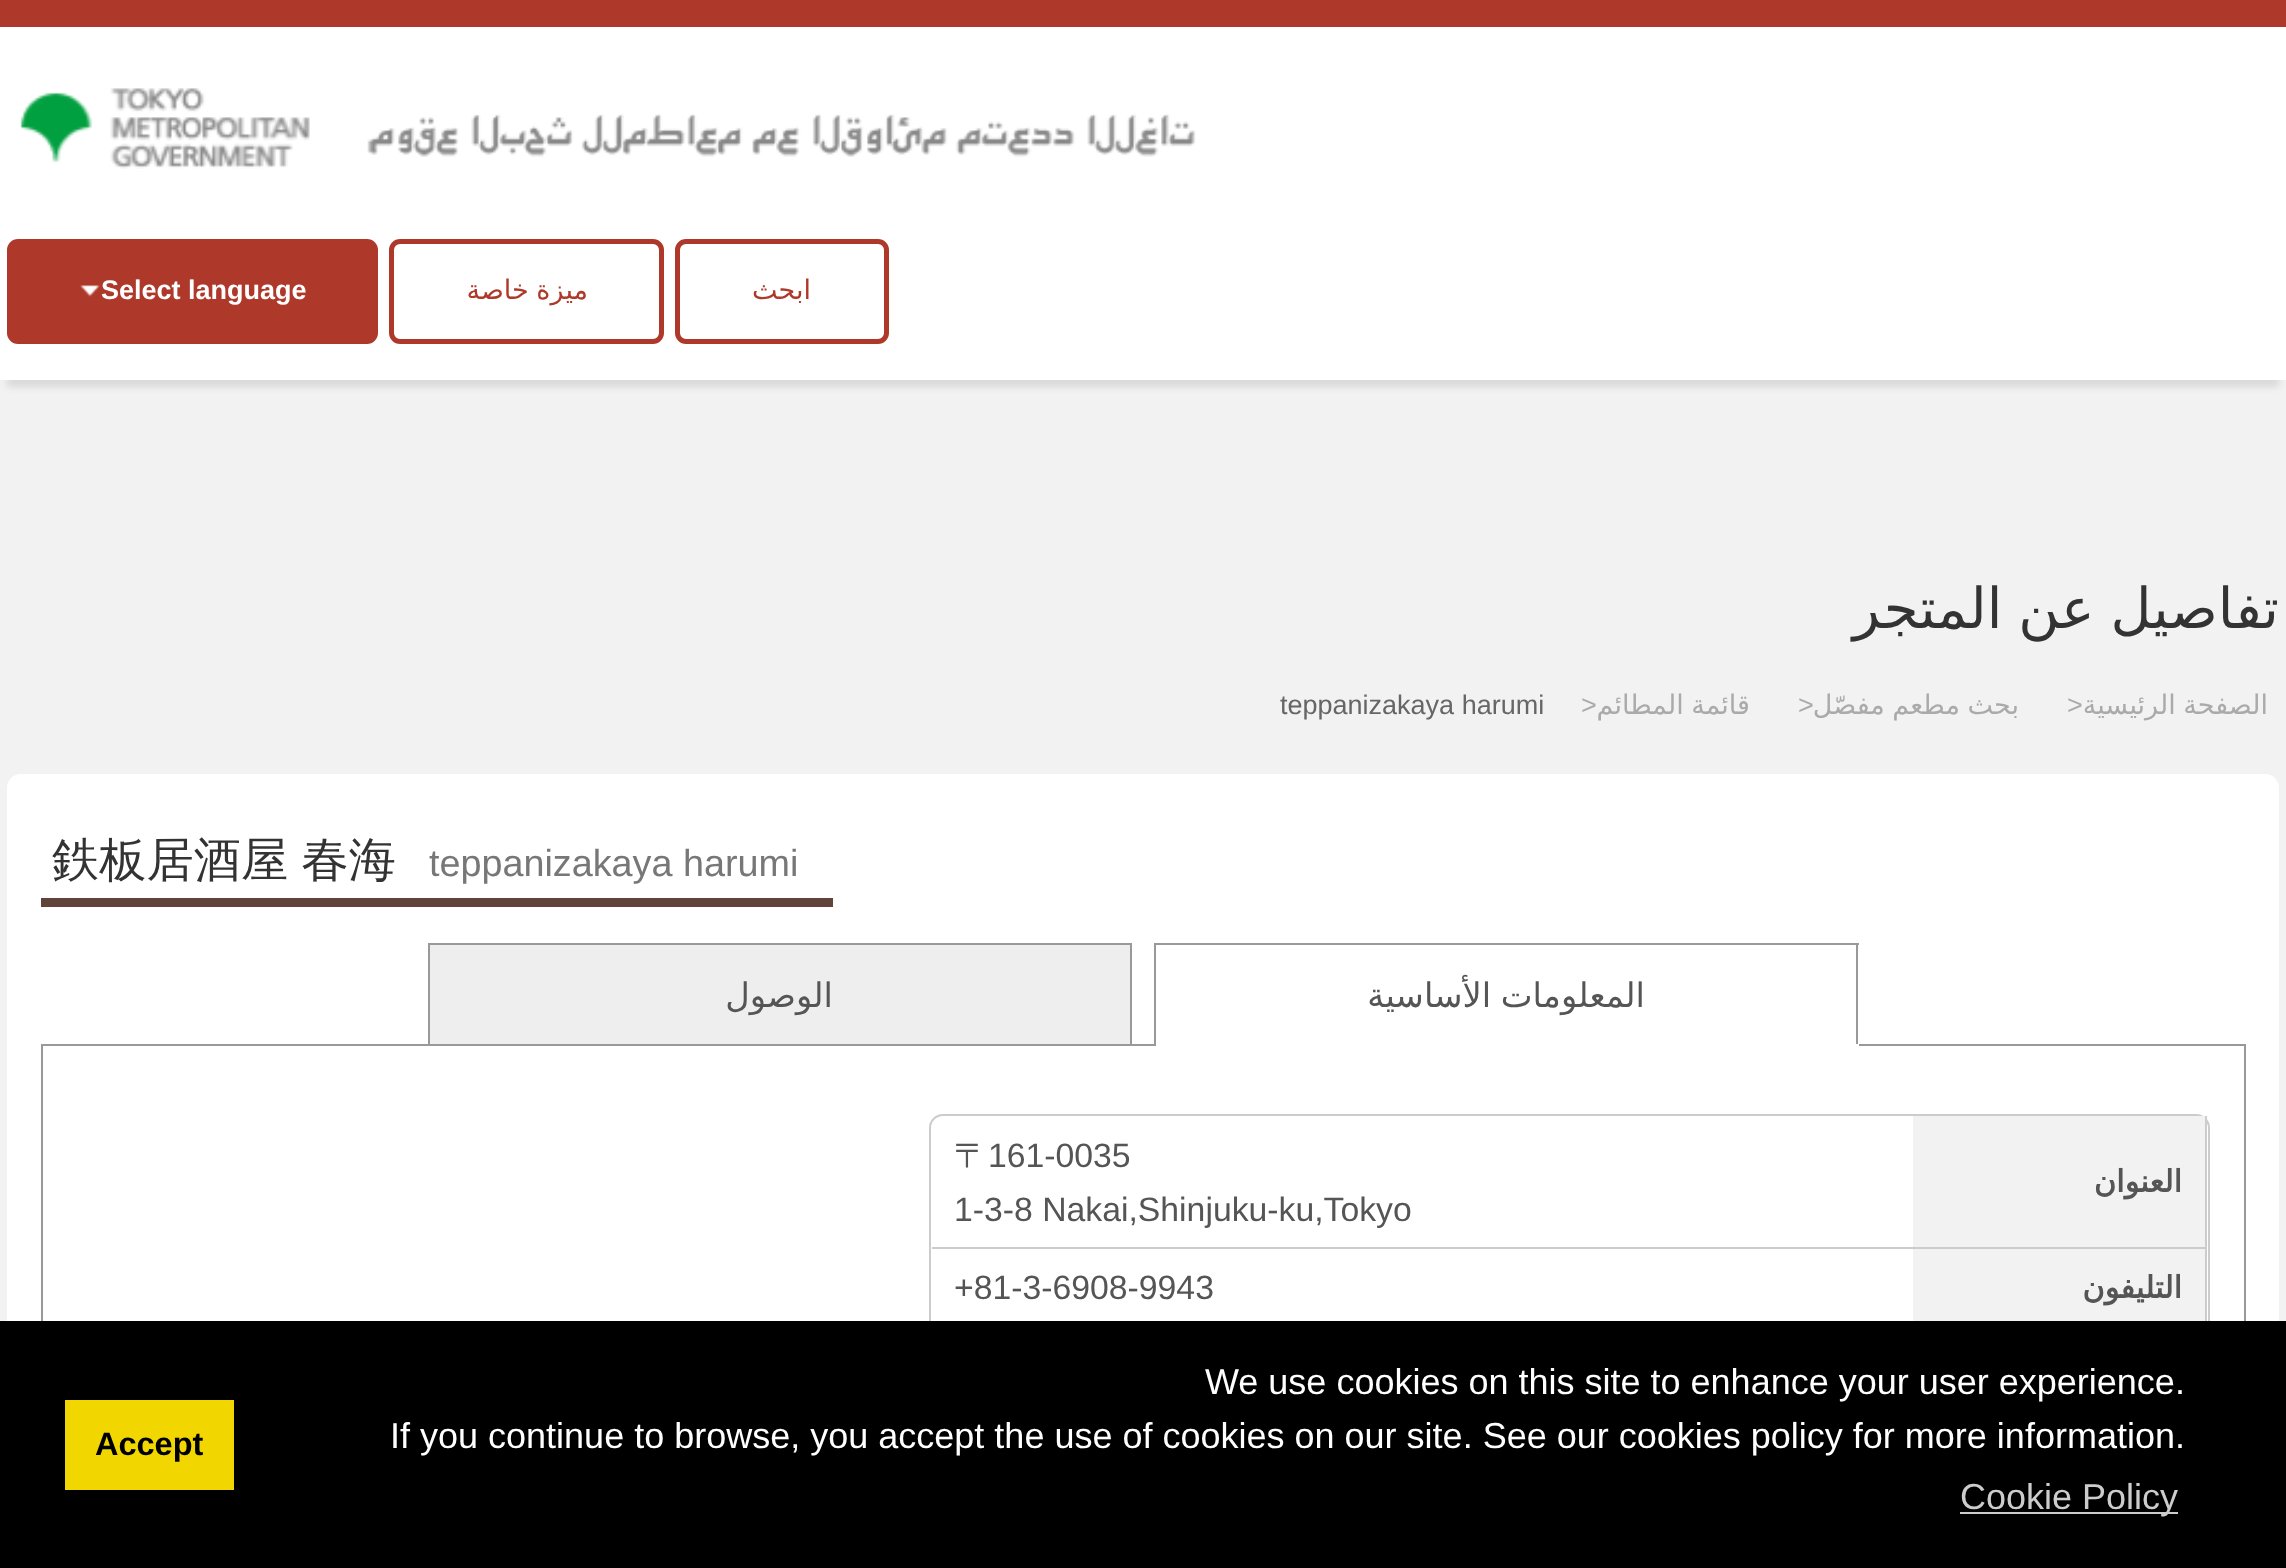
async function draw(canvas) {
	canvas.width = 2286;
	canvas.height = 1568;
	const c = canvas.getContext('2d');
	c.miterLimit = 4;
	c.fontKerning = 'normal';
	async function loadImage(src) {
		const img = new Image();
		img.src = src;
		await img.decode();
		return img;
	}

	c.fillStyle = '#f2f2f2';
	c.fillRect(0, 0, 2286, 1568);
	c.fillStyle = '#ae392a';
	c.fillRect(0, 0, 2286, 14);
	c.fillStyle = '#0000001a';
	c.filter = 'blur(3.5px)';
	c.beginPath();
	c.rect(7, 34, 2272, 353);
	c.fill();
	c.filter = 'none';
	c.fillStyle = '#fff';
	c.fillRect(0, 27, 2286, 353);
	c.fillStyle = '#ae392a';
	c.fillRect(0, 14, 2286, 13);
	c.drawImage(await loadImage('img1.png'), 20, 88, 290, 81);
	c.drawImage(await loadImage('img2.png'), 367, 113, 829, 44);
	c.beginPath();
	c.roundRect(7, 239, 371, 105, 11);
	c.fill();
	c.drawImage(await loadImage('img3.png'), 80, 285, 20, 12);
	c.font = 'bold 27px Liberation Sans';
	c.fillStyle = '#fff';
	c.fillText('Select language', 101, 299);
	c.beginPath();
	c.roundRect(391.5, 241.5, 270, 100, 8.5);
	c.strokeStyle = '#ae392a';
	c.lineWidth = 5;
	c.stroke();
	c.wordSpacing = '-1px';
	c.direction = 'rtl';
	c.font = '27px DejaVu Sans';
	c.fillStyle = '#ae392a';
	c.fillText('ميزة خاصة', 588, 299);
	c.beginPath();
	c.roundRect(677.5, 241.5, 209, 100, 8.5);
	c.stroke();
	c.wordSpacing = '0px';
	c.fillText('ابحث', 811, 299);
	c.wordSpacing = '-2px';
	c.font = '56.25px DejaVu Sans';
	c.fillStyle = '#333';
	c.fillText('تفاصيل عن المتجر', 2279, 628);
	c.wordSpacing = '0px';
	c.direction = 'ltr';
	c.font = '27px Liberation Sans';
	c.fillStyle = '#666';
	c.fillText('teppanizakaya harumi', 1280, 714);
	c.fillStyle = '#aaa';
	c.fillText('>', 1581, 714);
	c.wordSpacing = '-1px';
	c.direction = 'rtl';
	c.font = '27px DejaVu Sans';
	c.fillText('قائمة المطائم', 1750, 714);
	c.wordSpacing = '0px';
	c.direction = 'ltr';
	c.font = '27px Liberation Sans';
	c.fillText('>', 1798, 714);
	c.wordSpacing = '-1px';
	c.direction = 'rtl';
	c.font = '27px DejaVu Sans';
	c.fillText('بحث مطعم مفصّل', 2019, 714);
	c.wordSpacing = '0px';
	c.direction = 'ltr';
	c.font = '27px Liberation Sans';
	c.fillText('>', 2067, 714);
	c.wordSpacing = '-1px';
	c.direction = 'rtl';
	c.font = '27px DejaVu Sans';
	c.fillText('الصفحة الرئيسية', 2268, 714);
	c.fillStyle = '#fff';
	c.beginPath();
	c.roundRect(7, 774, 2272, 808, 14);
	c.fill();
	c.fillStyle = '#604439';
	c.fillRect(41, 898, 792, 9);
	c.direction = 'ltr';
	c.font = '500 47.25px WenQuanYi Zen Hei';
	c.fillStyle = '#333';
	c.fillText('鉄板居酒屋 春海', 52, 876);
	c.wordSpacing = '0px';
	c.font = '37.75px Liberation Sans';
	c.fillStyle = '#777';
	c.fillText('teppanizakaya harumi', 429, 876);
	c.strokeStyle = '#999';
	c.lineWidth = 2;
	c.strokeRect(42, 1045, 2203, 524);
	c.fillStyle = '#eee';
	c.beginPath();
	c.rect(429, 944, 702, 101);
	c.fill();
	c.stroke();
	c.direction = 'rtl';
	c.font = '33.75px DejaVu Sans';
	c.fillStyle = '#555';
	c.fillText('الوصول', 833, 1007);
	for (const [x, y, w, h, color] of [
		[1154, 943, 705, 2, '#999'],
		[1856, 943, 2, 103, '#999'],
		[1154, 1044, 705, 2, '#fff'],
		[1154, 943, 2, 103, '#999'],
	]) {
		c.fillStyle = color;
		c.fillRect(x, y, w, h);
	}
	c.wordSpacing = '-1px';
	c.fillStyle = '#555';
	c.fillText('المعلومات الأساسية', 1645, 1007);
	c.beginPath();
	c.roundRect(930, 1115, 1279, 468, 13);
	c.strokeStyle = '#ccc';
	c.stroke();
	c.wordSpacing = '0px';
	c.direction = 'ltr';
	c.font = '500 33.75px WenQuanYi Zen Hei';
	c.fillText('〒', 954, 1167);
	c.font = '33.75px Liberation Sans';
	c.fillText('161-0035', 988, 1167);
	c.fillText('1-3-8 Nakai,Shinjuku-ku,Tokyo', 954, 1221);
	c.fillStyle = '#f2f2f2';
	c.fillRect(1913, 1116, 292, 131);
	c.fillStyle = '#ccc';
	c.fillRect(2205, 1116, 2, 131);
	c.direction = 'rtl';
	c.font = 'bold 30.5px DejaVu Sans';
	c.fillStyle = '#555';
	c.fillText('العنوان', 2182, 1192);
	c.direction = 'ltr';
	c.font = '33.75px Liberation Sans';
	c.fillText('+81-3-6908-9943', 954, 1299);
	for (const [x, y, w, h, color] of [
		[1913, 1249, 292, 72, '#f2f2f2'],
		[932, 1247, 1275, 2, '#ccc'],
		[2205, 1247, 2, 78, '#ccc'],
	]) {
		c.fillStyle = color;
		c.fillRect(x, y, w, h);
	}
	c.direction = 'rtl';
	c.font = 'bold 30.5px DejaVu Sans';
	c.fillStyle = '#555';
	c.fillText('التليفون', 2182, 1298);
	c.fillStyle = '#000';
	c.fillRect(0, 1321, 2286, 247);
	c.fillStyle = '#f1d600';
	c.fillRect(65, 1400, 169, 90);
	c.direction = 'ltr';
	c.font = 'bold 32.5px Liberation Sans';
	c.fillStyle = '#000';
	c.fillText('Accept', 95, 1455);
	c.font = '36px Liberation Sans';
	c.fillStyle = '#fff';
	c.fillText('We use cookies on this site to enhance your user experience.', 1205, 1394);
	c.fillText('If you continue to browse, you accept the use of cookies on our site. See our cookies policy for more information.', 390, 1448);
	c.fillStyle = '#ccc';
	c.fillRect(1960, 1512, 218, 2);
	c.fillText('Cookie Policy', 1960, 1509);
}

draw(document.querySelector('canvas'));
